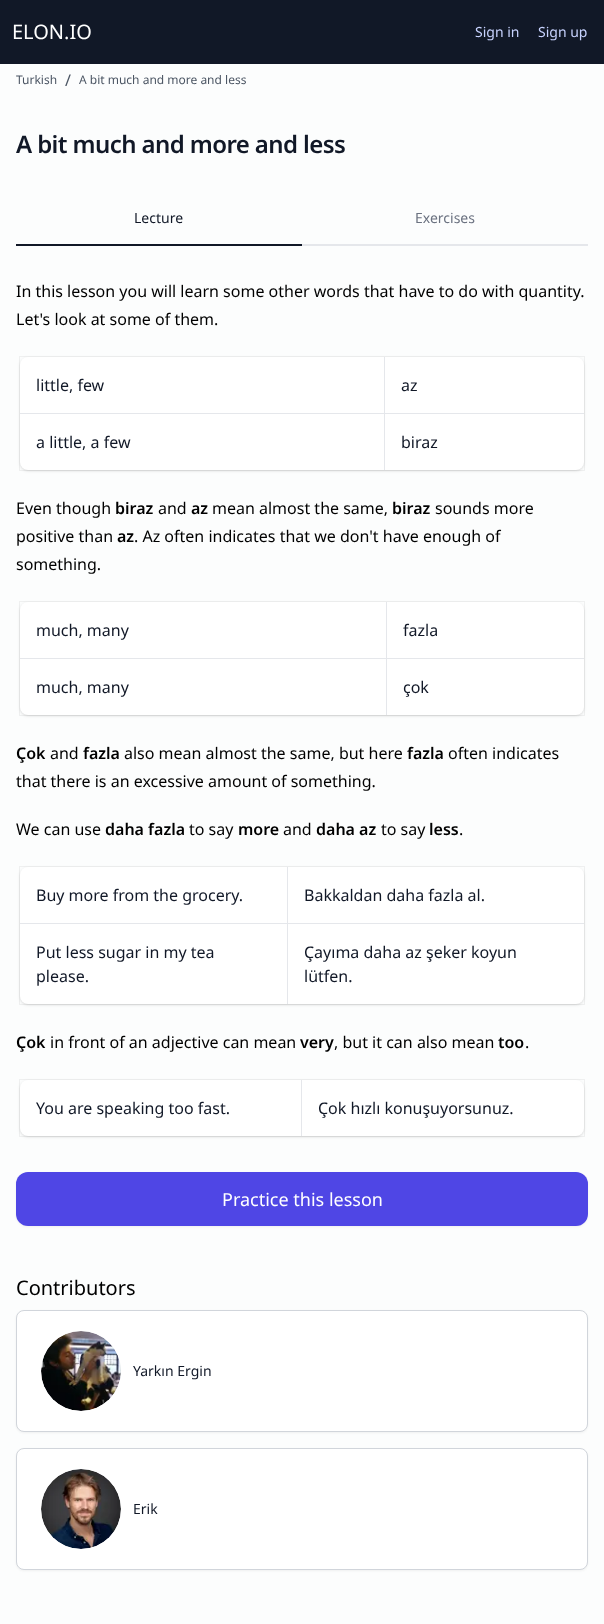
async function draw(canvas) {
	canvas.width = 604;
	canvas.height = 1624;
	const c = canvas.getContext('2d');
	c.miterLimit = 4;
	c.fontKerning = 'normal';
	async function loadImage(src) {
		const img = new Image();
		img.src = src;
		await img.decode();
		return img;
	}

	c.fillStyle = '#fcfdfd';
	c.fillRect(0, 0, 604, 1624);
	c.fillStyle = '#111827';
	c.fillRect(0, 0, 604, 64);
	c.font = '20px Noto Sans';
	c.fillStyle = '#fff';
	c.fillText('ELON.IO', 12, 39);
	c.font = '14px Noto Sans';
	c.fillStyle = '#c7d2fe';
	c.fillText('Sign in', 475, 37);
	c.fillText('Sign up', 538, 37);
	c.font = '12px Noto Sans';
	c.fillStyle = '#4b5563';
	c.fillText('Turkish', 16, 84);
	c.font = '16px Noto Sans';
	c.fillText('/', 65, 86);
	c.font = '12px Noto Sans';
	c.fillText('A bit much and more and less', 79, 84);
	c.letterSpacing = '-0.6px';
	c.font = '600 24px Noto Sans';
	c.fillStyle = '#111827';
	c.fillText('A bit much and more and less', 16, 153);
	c.fillRect(16, 244, 286, 2);
	c.letterSpacing = '0px';
	c.font = '14px Noto Sans';
	c.fillText('Lecture', 134, 223);
	c.fillStyle = '#e5e7eb';
	c.fillRect(302, 244, 286, 2);
	c.fillStyle = '#6b7280';
	c.fillText('Exercises', 415, 223);
	c.font = '16px Noto Sans';
	c.fillStyle = '#000';
	c.fillText('In this lesson you will learn some other words that have to do with quantity.', 16, 297);
	c.fillText('Let\'s look at some of them.', 16, 325);
	c.fillStyle = '#0000001a';
	c.filter = 'blur(1px)';
	c.beginPath();
	c.roundRect(21, 359, 562, 111, 7);
	c.fill();
	c.filter = 'none';
	c.filter = 'blur(1.5px)';
	c.beginPath();
	c.roundRect(20, 358, 564, 113, 8);
	c.fill();
	c.filter = 'none';
	c.strokeStyle = '#0000000d';
	c.strokeRect(19.5, 356.5, 565, 114);
	c.fillStyle = '#fff';
	c.beginPath();
	c.roundRect(20, 357, 564, 113, 8);
	c.fill();
	c.fillStyle = '#111827';
	c.fillText('little, few', 36, 391);
	c.fillText('az', 401, 391);
	c.fillStyle = '#e5e7eb';
	c.fillRect(20, 413, 564, 1);
	c.fillStyle = '#111827';
	c.fillText('a little, a few', 36, 448);
	c.fillStyle = '#e5e7eb';
	c.fillRect(384, 357, 1, 113);
	c.fillStyle = '#111827';
	c.fillText('biraz', 401, 448);
	c.fillStyle = '#000';
	c.fillText('Even though', 16, 514);
	c.font = '600 16px Noto Sans';
	c.fillText('biraz', 115, 514);
	c.font = '16px Noto Sans';
	c.fillText('and', 158, 514);
	c.font = '600 16px Noto Sans';
	c.fillText('az', 191, 514);
	c.font = '16px Noto Sans';
	c.fillText('mean almost the same,', 212, 514);
	c.font = '600 16px Noto Sans';
	c.fillText('biraz', 392, 514);
	c.font = '16px Noto Sans';
	c.fillText('sounds more', 435, 514);
	c.fillText('positive than', 16, 542);
	c.font = '600 16px Noto Sans';
	c.fillText('az', 117, 542);
	c.font = '16px Noto Sans';
	c.fillText('. Az often indicates that we don\'t have enough of', 134, 542);
	c.fillText('something.', 16, 570);
	c.fillStyle = '#0000001a';
	c.filter = 'blur(1px)';
	c.beginPath();
	c.roundRect(21, 604, 562, 111, 7);
	c.fill();
	c.filter = 'none';
	c.filter = 'blur(1.5px)';
	c.beginPath();
	c.roundRect(20, 603, 564, 113, 8);
	c.fill();
	c.filter = 'none';
	c.strokeRect(19.5, 601.5, 565, 114);
	c.fillStyle = '#fff';
	c.beginPath();
	c.roundRect(20, 602, 564, 113, 8);
	c.fill();
	c.fillStyle = '#111827';
	c.fillText('much, many', 36, 636);
	c.fillText('fazla', 403, 636);
	c.fillStyle = '#e5e7eb';
	c.fillRect(20, 658, 564, 1);
	c.fillStyle = '#111827';
	c.fillText('much, many', 36, 693);
	c.fillStyle = '#e5e7eb';
	c.fillRect(386, 602, 1, 113);
	c.fillStyle = '#111827';
	c.fillText('çok', 403, 693);
	c.font = '600 16px Noto Sans';
	c.fillStyle = '#000';
	c.fillText('Çok', 16, 759);
	c.font = '16px Noto Sans';
	c.fillText('and', 50, 759);
	c.font = '600 16px Noto Sans';
	c.fillText('fazla', 83, 759);
	c.font = '16px Noto Sans';
	c.fillText('also mean almost the same, but here', 124, 759);
	c.font = '600 16px Noto Sans';
	c.fillText('fazla', 407, 759);
	c.font = '16px Noto Sans';
	for (const [text, x, y] of [
		['often indicates', 448, 759],
		['that there is an excessive amount of something.', 16, 787],
		['We can use', 16, 835],
	]) {
		c.fillText(text, x, y);
	}
	c.font = '600 16px Noto Sans';
	c.fillText('daha fazla', 105, 835);
	c.font = '16px Noto Sans';
	c.fillText('to say', 189, 835);
	c.font = '600 16px Noto Sans';
	c.fillText('more', 238, 835);
	c.font = '16px Noto Sans';
	c.fillText('and', 283, 835);
	c.font = '600 16px Noto Sans';
	c.fillText('daha az', 316, 835);
	c.font = '16px Noto Sans';
	c.fillText('to say', 381, 835);
	c.font = '600 16px Noto Sans';
	c.fillText('less', 429, 835);
	c.font = '16px Noto Sans';
	c.fillText('.', 459, 835);
	c.fillStyle = '#0000001a';
	c.filter = 'blur(1px)';
	c.beginPath();
	c.roundRect(21, 869, 562, 135, 7);
	c.fill();
	c.filter = 'none';
	c.filter = 'blur(1.5px)';
	c.beginPath();
	c.roundRect(20, 868, 564, 137, 8);
	c.fill();
	c.filter = 'none';
	c.strokeRect(19.5, 866.5, 565, 138);
	c.fillStyle = '#fff';
	c.beginPath();
	c.roundRect(20, 867, 564, 137, 8);
	c.fill();
	c.fillStyle = '#111827';
	c.fillText('Buy more from the grocery.', 36, 901);
	c.fillText('Bakkaldan daha fazla al.', 304, 901);
	c.fillStyle = '#e5e7eb';
	c.fillRect(20, 923, 564, 1);
	c.fillStyle = '#111827';
	c.fillText('Put less sugar in my tea', 36, 958);
	c.fillText('please.', 36, 982);
	c.fillStyle = '#e5e7eb';
	c.fillRect(287, 867, 1, 137);
	c.fillStyle = '#111827';
	c.fillText('Çayıma daha az şeker koyun', 304, 958);
	c.fillText('lütfen.', 304, 982);
	c.font = '600 16px Noto Sans';
	c.fillStyle = '#000';
	c.fillText('Çok', 16, 1048);
	c.font = '16px Noto Sans';
	c.fillText('in front of an adjective can mean', 50, 1048);
	c.font = '600 16px Noto Sans';
	c.fillText('very', 300, 1048);
	c.font = '16px Noto Sans';
	c.fillText(', but it can also mean', 334, 1048);
	c.font = '600 16px Noto Sans';
	c.fillText('too', 498, 1048);
	c.font = '16px Noto Sans';
	c.fillText('.', 525, 1048);
	c.fillStyle = '#0000001a';
	c.filter = 'blur(1px)';
	c.beginPath();
	c.roundRect(21, 1082, 562, 54, 7);
	c.fill();
	c.filter = 'none';
	c.filter = 'blur(1.5px)';
	c.beginPath();
	c.roundRect(20, 1081, 564, 56, 8);
	c.fill();
	c.filter = 'none';
	c.strokeRect(19.5, 1079.5, 565, 57);
	c.fillStyle = '#fff';
	c.beginPath();
	c.roundRect(20, 1080, 564, 56, 8);
	c.fill();
	c.fillStyle = '#111827';
	c.fillText('You are speaking too fast.', 36, 1114);
	c.fillStyle = '#e5e7eb';
	c.fillRect(301, 1080, 1, 56);
	c.fillStyle = '#111827';
	c.fillText('Çok hızlı konuşuyorsunuz.', 318, 1114);
	c.fillStyle = '#0000000d';
	c.filter = 'blur(1px)';
	c.beginPath();
	c.roundRect(16, 1173, 572, 54, 12);
	c.fill();
	c.filter = 'none';
	c.fillStyle = '#4f46e5';
	c.beginPath();
	c.roundRect(16, 1172, 572, 54, 12);
	c.fill();
	c.font = '18px Noto Sans';
	c.fillStyle = '#fff';
	c.fillText('Practice this lesson', 222, 1206);
	c.font = '20px Noto Sans';
	c.fillStyle = '#000';
	c.fillText('Contributors', 16, 1295);
	c.fillStyle = '#0000000d';
	c.filter = 'blur(1px)';
	c.beginPath();
	c.roundRect(16, 1311, 572, 122, 8);
	c.fill();
	c.filter = 'none';
	c.fillStyle = '#fff';
	c.beginPath();
	c.roundRect(16.5, 1310.5, 571, 121, 7.5);
	c.fill();
	c.strokeStyle = '#d1d5db';
	c.stroke();
	c.fillStyle = '#f3f4f6';
	c.beginPath();
	c.arc(81, 1371, 40, 0, 2 * Math.PI);
	c.fill();
	c.drawImage(await loadImage('img1.png'), 41, 1331, 80, 80);
	c.font = '14px Noto Sans';
	c.fillStyle = '#111827';
	c.fillText('Yarkın Ergin', 133, 1376);
	c.fillStyle = '#0000000d';
	c.filter = 'blur(1px)';
	c.beginPath();
	c.roundRect(16, 1449, 572, 122, 8);
	c.fill();
	c.filter = 'none';
	c.fillStyle = '#fff';
	c.beginPath();
	c.roundRect(16.5, 1448.5, 571, 121, 7.5);
	c.fill();
	c.stroke();
	c.fillStyle = '#f3f4f6';
	c.beginPath();
	c.arc(81, 1509, 40, 0, 2 * Math.PI);
	c.fill();
	c.drawImage(await loadImage('img2.png'), 41, 1469, 80, 80);
	c.fillStyle = '#111827';
	c.fillText('Erik', 133, 1514);
}

draw(document.querySelector('canvas'));
